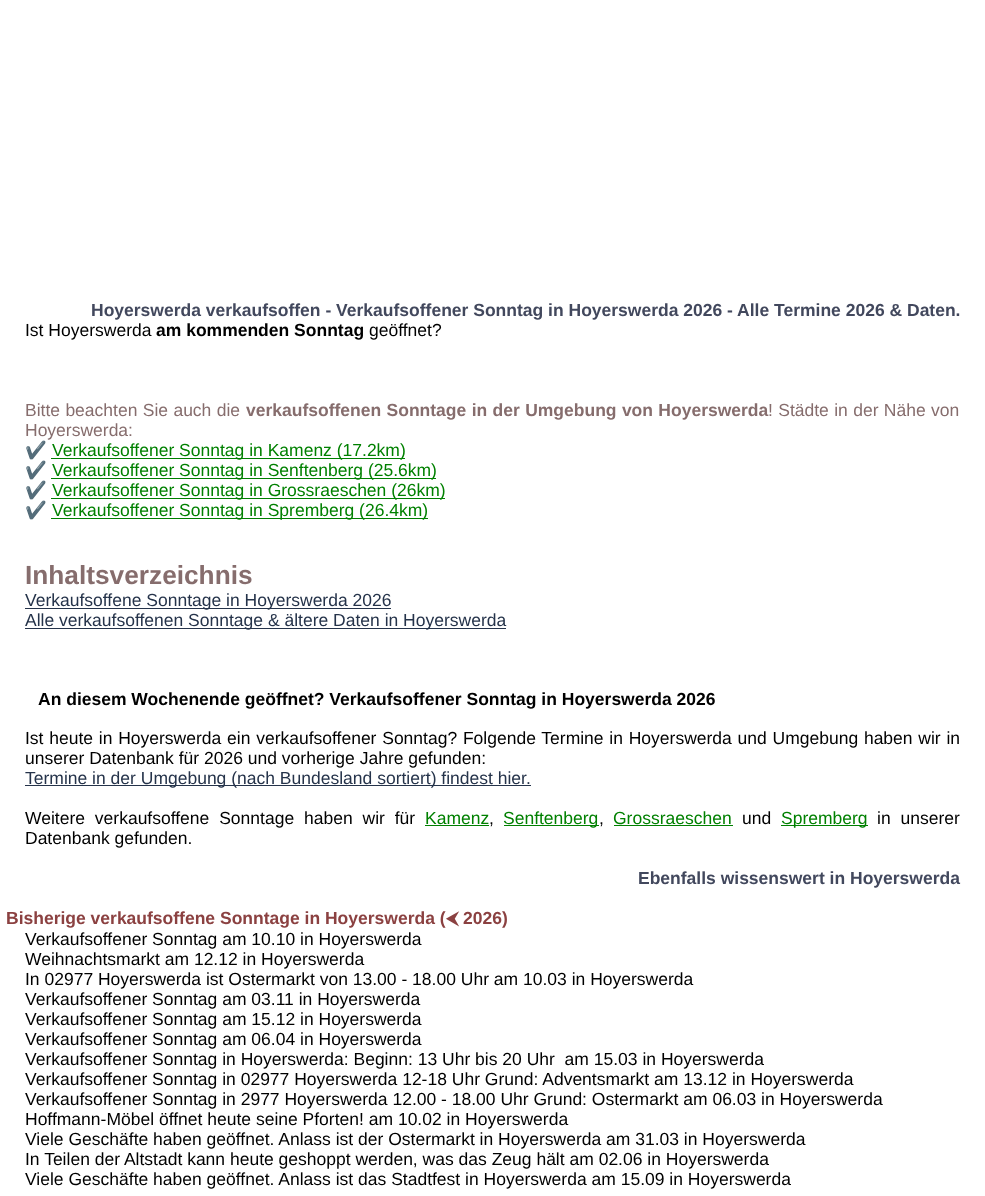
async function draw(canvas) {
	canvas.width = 985;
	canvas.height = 1196;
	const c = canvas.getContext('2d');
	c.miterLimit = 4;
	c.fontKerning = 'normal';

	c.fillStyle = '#fff';
	c.fillRect(0, 0, 985, 1196);
	c.font = 'bold 17.5px Liberation Sans';
	c.fillStyle = '#42485d';
	c.fillText('Hoyerswerda verkaufsoffen - Verkaufsoffener Sonntag in Hoyerswerda 2026 - Alle Termine 2026 & Daten.', 91, 316);
	c.font = '17.5px Liberation Sans';
	c.fillStyle = '#000';
	c.fillText('Ist Hoyerswerda', 25, 336);
	c.font = 'bold 17.5px Liberation Sans';
	c.fillText('am kommenden Sonntag', 156, 336);
	c.font = '17.5px Liberation Sans';
	c.fillText('geöffnet?', 369, 336);
	c.wordSpacing = '0.5px';
	c.fillStyle = '#866d6d';
	c.fillText('Bitte beachten Sie auch die', 25, 416);
	c.font = 'bold 17.5px Liberation Sans';
	c.fillText('verkaufsoffenen Sonntage in der Umgebung von Hoyerswerda', 246, 416);
	c.font = '17.5px Liberation Sans';
	c.fillText('! Städte in der Nähe von', 768, 416);
	c.wordSpacing = '0px';
	c.fillText('Hoyerswerda:', 25, 436);
	c.font = '17.5px Noto Color Emoji';
	c.fillText('✔️', 25, 456);
	c.fillStyle = '#008000';
	c.fillRect(51, 458, 354, 1);
	c.font = '17.5px Liberation Sans';
	c.fillText('Verkaufsoffener Sonntag in Kamenz (17.2km)', 52, 456);
	c.font = '17.5px Noto Color Emoji';
	c.fillStyle = '#866d6d';
	c.fillText('✔️', 25, 476);
	c.fillStyle = '#008000';
	c.fillRect(51, 478, 385, 1);
	c.font = '17.5px Liberation Sans';
	c.fillText('Verkaufsoffener Sonntag in Senftenberg (25.6km)', 52, 476);
	c.font = '17.5px Noto Color Emoji';
	c.fillStyle = '#866d6d';
	c.fillText('✔️', 25, 496);
	c.fillStyle = '#008000';
	c.fillRect(51, 498, 394, 1);
	c.font = '17.5px Liberation Sans';
	c.fillText('Verkaufsoffener Sonntag in Grossraeschen (26km)', 52, 496);
	c.font = '17.5px Noto Color Emoji';
	c.fillStyle = '#866d6d';
	c.fillText('✔️', 25, 516);
	c.fillStyle = '#008000';
	c.fillRect(51, 518, 377, 1);
	c.font = '17.5px Liberation Sans';
	c.fillText('Verkaufsoffener Sonntag in Spremberg (26.4km)', 52, 516);
	c.font = 'bold 26.25px Liberation Sans';
	c.fillStyle = '#866d6d';
	c.fillText('Inhaltsverzeichnis', 25, 584);
	c.fillStyle = '#25334a';
	c.fillRect(25, 608, 366, 1);
	c.font = '17.5px Liberation Sans';
	c.fillText('Verkaufsoffene Sonntage in Hoyerswerda 2026', 25, 606);
	c.fillRect(25, 628, 481, 1);
	c.fillText('Alle verkaufsoffenen Sonntage & ältere Daten in Hoyerswerda', 25, 626);
	c.font = 'bold 17.5px Liberation Sans';
	c.fillStyle = '#000';
	c.fillText('An diesem Wochenende geöffnet? Verkaufsoffener Sonntag in Hoyerswerda 2026', 38, 705);
	c.wordSpacing = '0.9px';
	c.font = '17.5px Liberation Sans';
	c.fillText('Ist heute in Hoyerswerda ein verkaufsoffener Sonntag? Folgende Termine in Hoyerswerda und Umgebung haben wir in', 25, 744);
	c.wordSpacing = '0px';
	c.fillText('unserer Datenbank für 2026 und vorherige Jahre gefunden:', 25, 764);
	c.fillStyle = '#25334a';
	c.fillRect(25, 785, 506, 1);
	c.fillText('Termine in der Umgebung (nach Bundesland sortiert) findest hier.', 25, 784);
	c.wordSpacing = '5px';
	c.fillStyle = '#000';
	c.fillText('Weitere verkaufsoffene Sonntage haben wir für', 25, 824);
	c.wordSpacing = '0px';
	c.fillStyle = '#008000';
	c.fillText('Kamenz', 425, 824);
	c.fillRect(425, 825, 64, 1);
	c.fillStyle = '#000';
	c.fillText(',', 489, 824);
	c.fillStyle = '#008000';
	c.fillRect(504, 825, 95, 1);
	c.fillText('Senftenberg', 503, 824);
	c.fillStyle = '#000';
	c.fillText(',', 599, 824);
	c.fillStyle = '#008000';
	c.fillText('Grossraeschen', 613, 824);
	c.fillRect(614, 825, 119, 1);
	c.fillStyle = '#000';
	c.fillText('und', 742, 824);
	c.fillStyle = '#008000';
	c.fillRect(781, 825, 87, 1);
	c.fillText('Spremberg', 781, 824);
	c.wordSpacing = '5px';
	c.fillStyle = '#000';
	c.fillText('in unserer', 877, 824);
	c.wordSpacing = '0px';
	c.fillText('Datenbank gefunden.', 25, 844);
	c.font = 'bold 17.5px Liberation Sans';
	c.fillStyle = '#42485d';
	c.fillText('Ebenfalls wissenswert in Hoyerswerda', 638, 884);
	c.fillStyle = '#8b4141';
	c.fillText('Bisherige verkaufsoffene Sonntage in Hoyerswerda (', 6, 924);
	c.font = 'bold 17.5px FreeSans';
	c.fillText('⮜', 446, 924);
	c.font = 'bold 17.5px Liberation Sans';
	c.fillText('2026)', 463, 924);
	c.font = '17.5px Liberation Sans';
	c.fillStyle = '#000';
	for (const [text, x, y] of [
		['Verkaufsoffener Sonntag am 10.10 in Hoyerswerda', 25, 945],
		['Weihnachtsmarkt am 12.12 in Hoyerswerda', 25, 965],
		['In 02977 Hoyerswerda ist Ostermarkt von 13.00 - 18.00 Uhr am 10.03 in Hoyerswerda', 25, 985],
		['Verkaufsoffener Sonntag am 03.11 in Hoyerswerda', 25, 1005],
		['Verkaufsoffener Sonntag am 15.12 in Hoyerswerda', 25, 1025],
		['Verkaufsoffener Sonntag am 06.04 in Hoyerswerda', 25, 1045],
		['Verkaufsoffener Sonntag in Hoyerswerda: Beginn: 13 Uhr bis 20 Uhr  am 15.03 in Hoyerswerda', 25, 1065],
		['Verkaufsoffener Sonntag in 02977 Hoyerswerda 12-18 Uhr Grund: Adventsmarkt am 13.12 in Hoyerswerda', 25, 1085],
		['Verkaufsoffener Sonntag in 2977 Hoyerswerda 12.00 - 18.00 Uhr Grund: Ostermarkt am 06.03 in Hoyerswerda', 25, 1105],
		['Hoffmann-Möbel öffnet heute seine Pforten! am 10.02 in Hoyerswerda', 25, 1125],
		['Viele Geschäfte haben geöffnet. Anlass ist der Ostermarkt in Hoyerswerda am 31.03 in Hoyerswerda', 25, 1145],
		['In Teilen der Altstadt kann heute geshoppt werden, was das Zeug hält am 02.06 in Hoyerswerda', 25, 1165],
		['Viele Geschäfte haben geöffnet. Anlass ist das Stadtfest in Hoyerswerda am 15.09 in Hoyerswerda', 25, 1185],
	]) {
		c.fillText(text, x, y);
	}
}

draw(document.querySelector('canvas'));
